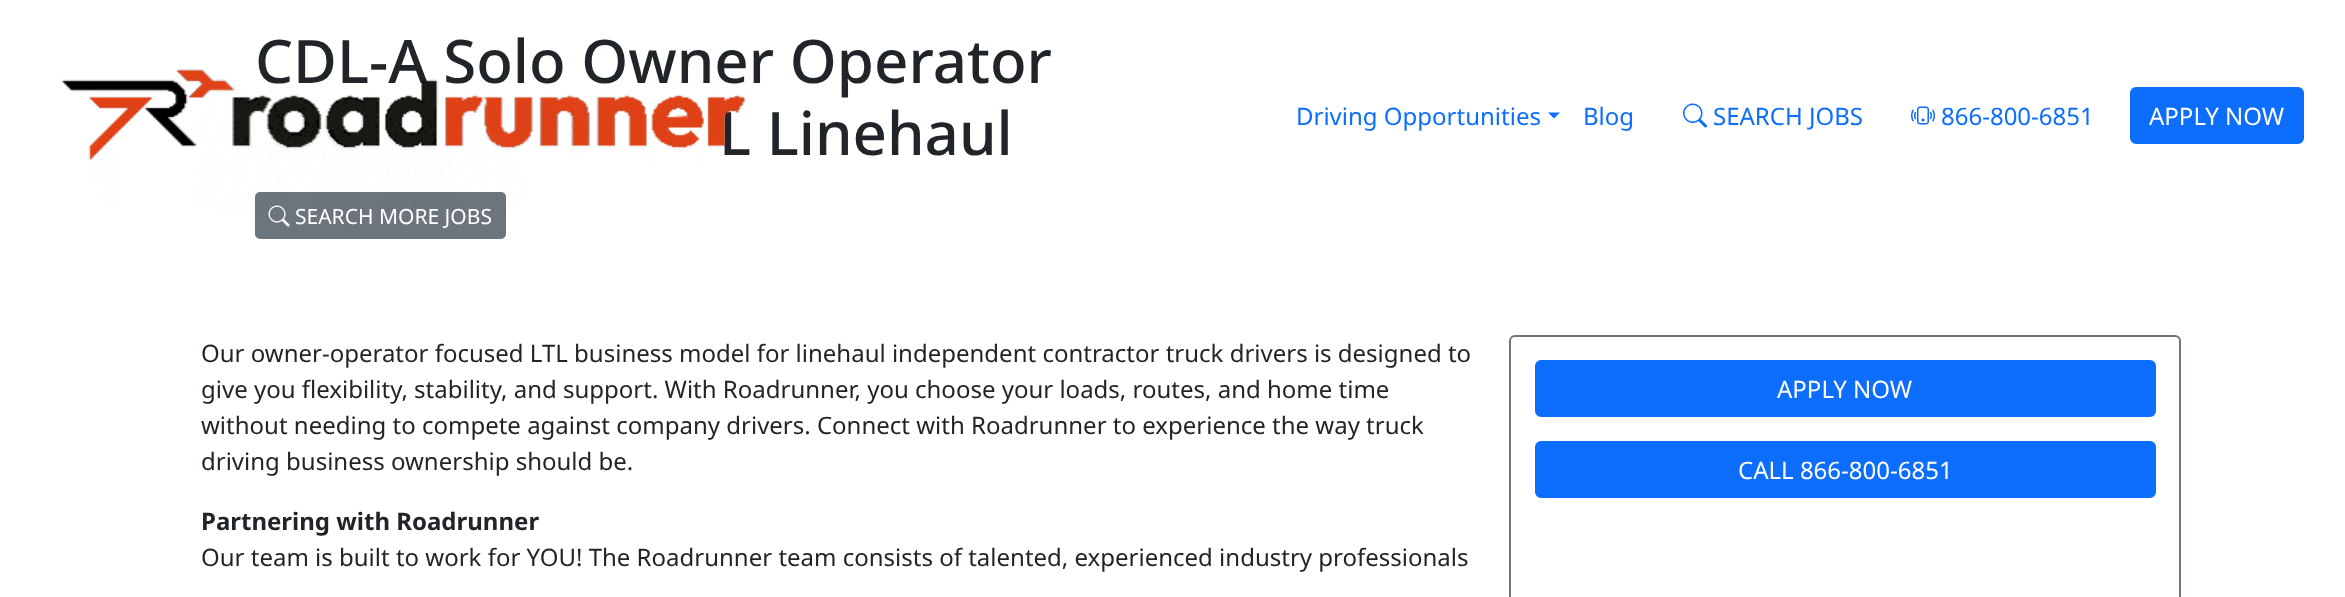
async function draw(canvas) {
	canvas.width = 2345;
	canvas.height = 597;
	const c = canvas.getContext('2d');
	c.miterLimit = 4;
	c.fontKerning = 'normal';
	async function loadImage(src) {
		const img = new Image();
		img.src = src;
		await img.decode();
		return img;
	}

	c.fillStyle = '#fff';
	c.fillRect(0, 0, 2345, 597);
	c.font = '500 60px Noto Sans';
	c.fillStyle = '#212529';
	c.fillText('CDL-A Solo Owner Operator', 255, 83);
	c.fillText('L Linehaul', 719, 155);
	c.fillStyle = '#6c757d';
	c.beginPath();
	c.roundRect(256, 193, 249, 45, 4);
	c.fill();
	c.strokeStyle = '#6c757d';
	c.lineWidth = 2;
	c.stroke();
	c.drawImage(await loadImage('img1.png'), 268, 205, 22, 22);
	c.font = '21px Noto Sans';
	c.fillStyle = '#fff';
	c.fillText('SEARCH MORE JOBS', 295, 224);
	c.font = '24px Noto Sans';
	c.fillStyle = '#212529';
	for (const [text, x, y] of [
		['Our owner-operator focused LTL business model for linehaul independent contractor truck drivers is designed to', 201, 362],
		['give you flexibility, stability, and support. With Roadrunner, you choose your loads, routes, and home time', 201, 398],
		['without needing to compete against company drivers. Connect with Roadrunner to experience the way truck', 201, 434],
		['driving business ownership should be.', 201, 470],
	]) {
		c.fillText(text, x, y);
	}
	c.font = 'bold 24px Noto Sans';
	c.fillText('Partnering with Roadrunner', 201, 530);
	c.font = '24px Noto Sans';
	c.fillText('Our team is built to work for YOU! The Roadrunner team consists of talented, experienced industry professionals', 201, 566);
	c.beginPath();
	c.roundRect(1510, 336, 670, 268, 5);
	c.stroke();
	c.fillStyle = '#0d6efd';
	c.beginPath();
	c.roundRect(1536, 361, 619, 55, 5);
	c.fill();
	c.strokeStyle = '#0d6efd';
	c.stroke();
	c.fillStyle = '#fff';
	c.fillText('APPLY NOW', 1777, 398);
	c.fillStyle = '#0d6efd';
	c.beginPath();
	c.roundRect(1536, 442, 619, 55, 5);
	c.fill();
	c.stroke();
	c.fillStyle = '#fff';
	c.fillText('CALL 866-800-6851', 1738, 479);
	c.drawImage(await loadImage('img2.png'), 61, 69, 685, 142);
	c.fillStyle = '#0d6efd';
	c.fillText('Driving Opportunities', 1296, 125);
	c.beginPath();
	c.moveTo(1548, 112.5);
	c.lineTo(1560, 112.5);
	c.lineTo(1554, 118.5);
	c.closePath();
	c.fill();
	c.fillText('Blog', 1583, 125);
	c.drawImage(await loadImage('img3.png'), 1683, 103, 24, 25);
	c.fillText('SEARCH JOBS', 1713, 125);
	c.drawImage(await loadImage('img4.png'), 1911, 106, 24, 19);
	c.fillText('866-800-6851', 1941, 125);
	c.beginPath();
	c.roundRect(2131, 88, 172, 55, 5);
	c.fill();
	c.stroke();
	c.fillStyle = '#fff';
	c.fillText('APPLY NOW', 2149, 125);
}

draw(document.querySelector('canvas'));
